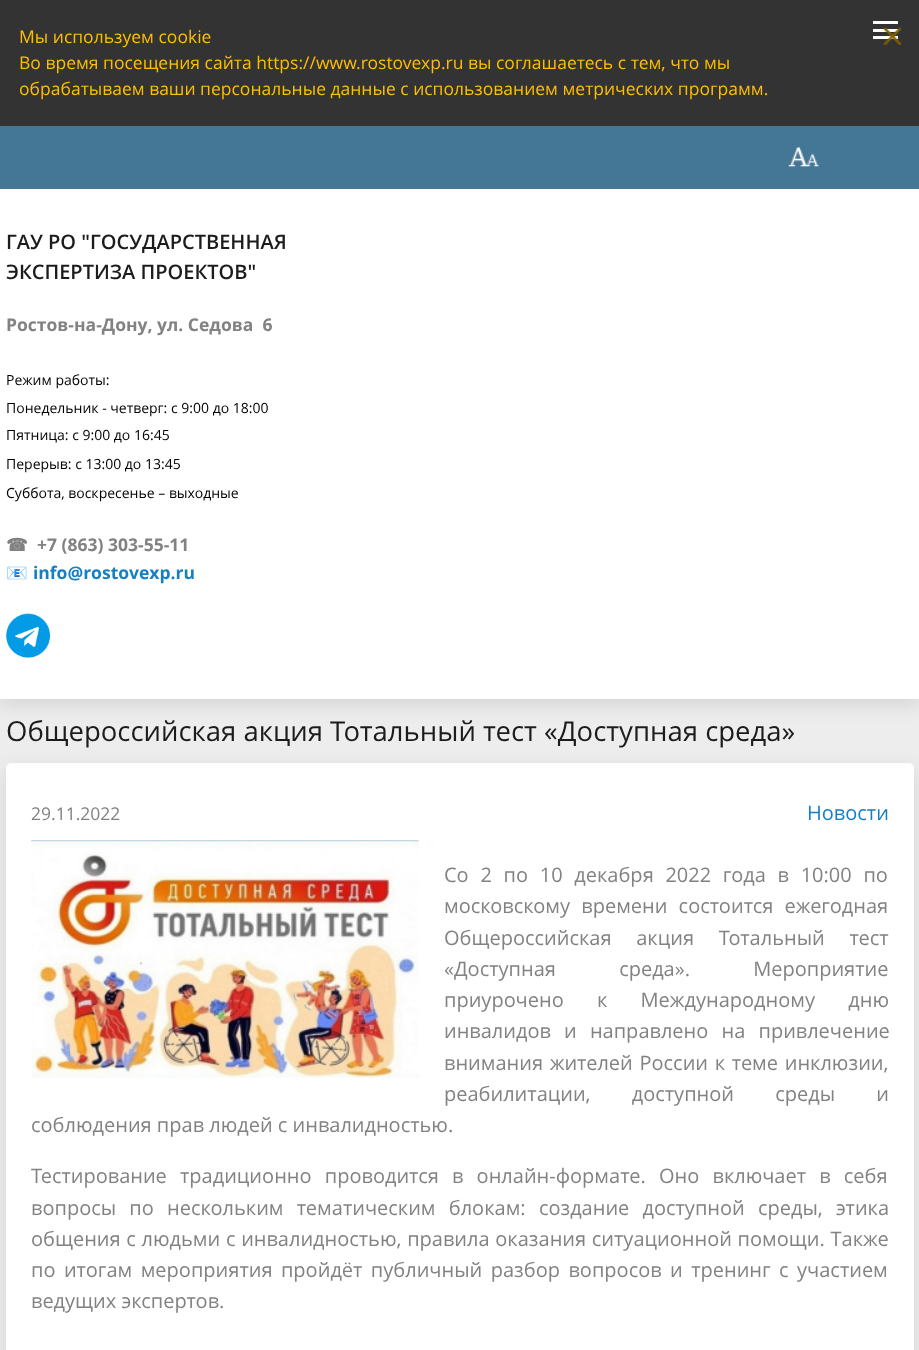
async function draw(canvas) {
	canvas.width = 919;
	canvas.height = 1350;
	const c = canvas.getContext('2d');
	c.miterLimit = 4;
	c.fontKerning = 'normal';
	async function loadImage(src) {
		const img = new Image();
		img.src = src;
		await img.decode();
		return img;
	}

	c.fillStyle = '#ededed';
	c.fillRect(0, 0, 919, 1350);
	c.fillStyle = '#333';
	c.fillRect(0, 0, 919, 126);
	c.font = '17.5px Open Sans';
	c.fillStyle = '#ffbf00';
	for (const [text, x, y] of [
		['Мы используем cookie', 19, 43],
		['Во время посещения сайта https://www.rostovexp.ru вы соглашаетесь с тем, что мы', 19, 69],
		['обрабатываем ваши персональные данные с использованием метрических программ.', 19, 95],
	]) {
		c.fillText(text, x, y);
	}
	c.fillStyle = '#fff';
	c.fillRect(873, 29, 25, 3);
	c.fillRect(873, 36, 25, 3);
	c.drawImage(await loadImage('img1.png'), 883, 27, 19, 18);
	c.fillRect(873, 21, 25, 3);
	c.fillStyle = '#0000001a';
	c.filter = 'blur(9.5px)';
	c.beginPath();
	c.rect(0, 195, 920, 510);
	c.fill();
	c.filter = 'none';
	c.fillStyle = '#447696';
	c.fillRect(0, 126, 919, 63);
	c.drawImage(await loadImage('img2.png'), 788, 147, 31, 20);
	c.fillStyle = '#fff';
	c.fillRect(0, 189, 919, 510);
	c.font = '600 20px Open Sans';
	c.fillStyle = '#1c1c1c';
	c.fillText('ГАУ РО "ГОСУДАРСТВЕННАЯ', 6, 249);
	c.fillText('ЭКСПЕРТИЗА ПРОЕКТОВ"', 6, 279);
	c.font = 'bold 17.5px Open Sans';
	c.fillStyle = '#828282';
	c.fillText('Ростов-на-Дону, ул. Седова  6', 6, 331);
	c.font = '14px Open Sans';
	c.fillStyle = '#000';
	for (const [text, x, y] of [
		['Режим работы:', 6, 385],
		['Понедельник - четверг: с 9:00 до 18:00', 6, 413],
		['Пятница: с 9:00 до 16:45', 6, 440],
		['Перерыв: с 13:00 до 13:45', 6, 469],
		['Суббота, воскресенье – выходные', 6, 498],
	]) {
		c.fillText(text, x, y);
	}
	c.font = 'bold 17.5px DejaVu Sans';
	c.fillStyle = '#828282';
	c.fillText('☎', 6, 551);
	c.font = 'bold 17.5px Open Sans';
	c.fillText('+7 (863) 303-55-11', 37, 551);
	c.font = 'bold 17.5px Noto Color Emoji';
	c.fillText('📧', 6, 579);
	c.font = 'bold 17.5px Open Sans';
	c.fillStyle = '#157fc4';
	c.fillText('info@rostovexp.ru', 33, 579);
	c.drawImage(await loadImage('img3.png'), 6, 613, 44, 45);
	c.fillStyle = '#0000001a';
	c.filter = 'blur(9.5px)';
	c.beginPath();
	c.roundRect(6, 769, 908, 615, 5);
	c.fill();
	c.filter = 'none';
	c.font = '27.5px Open Sans';
	c.fillStyle = '#1c1c1c';
	c.fillText('Общероссийская акция Тотальный тест «Доступная среда»', 6, 741);
	c.fillStyle = '#fff';
	c.beginPath();
	c.roundRect(6, 763, 908, 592, 5);
	c.fill();
	c.font = '17.5px Open Sans';
	c.fillStyle = '#828282';
	c.fillText('29.11.2022', 31, 820);
	c.font = '20px Open Sans';
	c.fillStyle = '#157fc4';
	c.fillText('Новости', 807, 820);
	c.drawImage(await loadImage('img4.png'), 31, 840, 388, 238);
	c.wordSpacing = '6.5px';
	c.fillStyle = '#828282';
	c.fillText('Со 2 по 10 декабря 2022 года в 10:00 по', 444, 882);
	c.wordSpacing = '6px';
	c.fillText('московскому времени состоится ежегодная', 444, 913);
	c.wordSpacing = '19.5px';
	c.fillText('Общероссийская акция Тотальный тест', 444, 945);
	c.wordSpacing = '58px';
	c.fillText('«Доступная среда». Мероприятие', 444, 976);
	c.wordSpacing = '28px';
	c.fillText('приурочено к Международному дню', 444, 1007);
	c.wordSpacing = '8px';
	c.fillText('инвалидов и направлено на привлечение', 444, 1038);
	c.wordSpacing = '1.5px';
	c.fillText('внимания жителей России к теме инклюзии,', 444, 1070);
	c.wordSpacing = '36px';
	c.fillText('реабилитации, доступной среды и', 444, 1101);
	c.wordSpacing = '0px';
	c.fillText('соблюдения прав людей с инвалидностью.', 31, 1132);
	c.wordSpacing = '8px';
	c.fillText('Тестирование традиционно проводится в онлайн-формате. Оно включает в себя', 31, 1183);
	c.fillText('вопросы по нескольким тематическим блокам: создание доступной среды, этика', 31, 1215);
	c.wordSpacing = '0.5px';
	c.fillText('общения с людьми с инвалидностью, правила оказания ситуационной помощи. Также', 31, 1246);
	c.wordSpacing = '3.25px';
	c.fillText('по итогам мероприятия пройдёт публичный разбор вопросов и тренинг с участием', 31, 1277);
	c.wordSpacing = '0px';
	c.fillText('ведущих экспертов.', 31, 1308);
}

draw(document.querySelector('canvas'));
